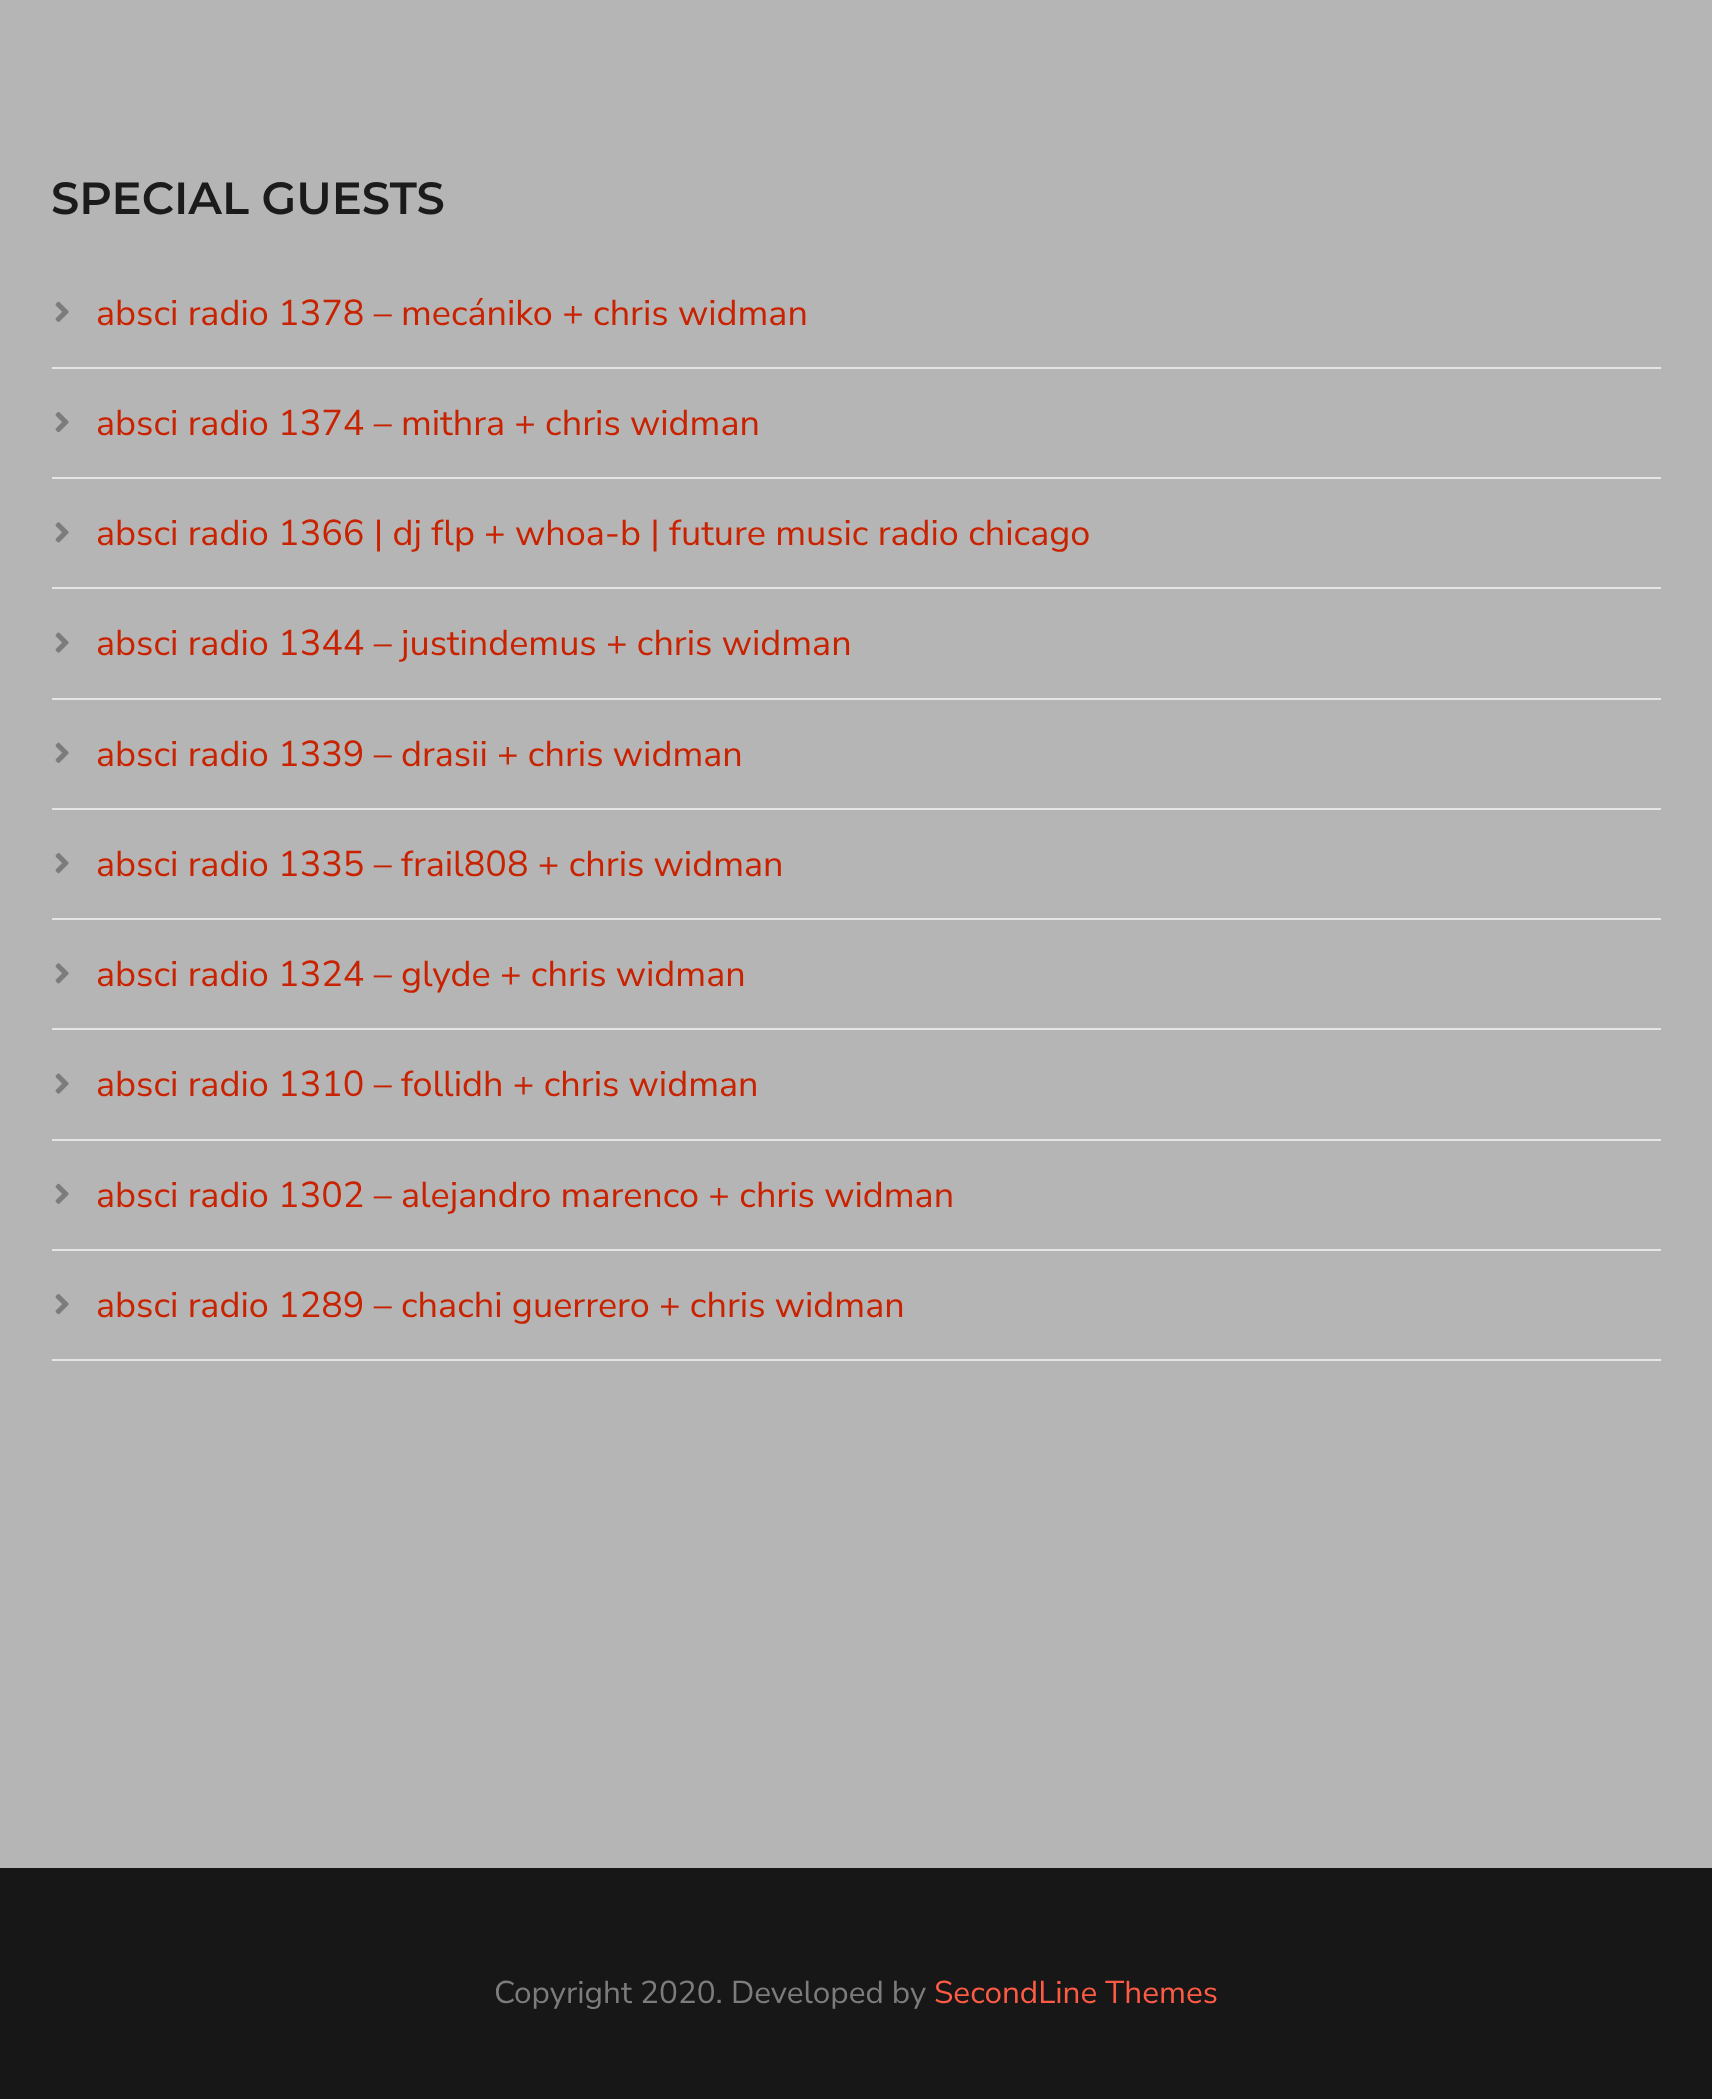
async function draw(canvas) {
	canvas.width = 1712;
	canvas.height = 2099;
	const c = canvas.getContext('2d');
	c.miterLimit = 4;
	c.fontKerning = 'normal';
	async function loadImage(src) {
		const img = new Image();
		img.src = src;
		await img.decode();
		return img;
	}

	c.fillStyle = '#b5b5b5';
	c.fillRect(0, 0, 1712, 2099);
	c.font = '600 45px Montserrat';
	c.fillStyle = '#1b1b1b';
	c.fillText('SPECIAL GUESTS', 51, 214);
	c.fillStyle = '#e5e5e5';
	c.fillRect(52, 367, 1609, 2);
	c.drawImage(await loadImage('img1.png'), 55, 301, 14, 21);
	c.font = '36px Nunito Sans';
	c.fillStyle = '#c92200';
	c.fillText('absci radio 1378 – mecániko + chris widman', 96, 325);
	c.fillStyle = '#e5e5e5';
	c.fillRect(52, 477, 1609, 2);
	c.drawImage(await loadImage('img2.png'), 55, 412, 14, 21);
	c.fillStyle = '#c92200';
	c.fillText('absci radio 1374 – mithra + chris widman', 96, 435);
	c.fillStyle = '#e5e5e5';
	c.fillRect(52, 587, 1609, 2);
	c.drawImage(await loadImage('img3.png'), 55, 522, 14, 21);
	c.fillStyle = '#c92200';
	c.fillText('absci radio 1366 | dj flp + whoa-b | future music radio chicago', 96, 545);
	c.fillStyle = '#e5e5e5';
	c.fillRect(52, 698, 1609, 2);
	c.drawImage(await loadImage('img4.png'), 55, 632, 14, 21);
	c.fillStyle = '#c92200';
	c.fillText('absci radio 1344 – justindemus + chris widman', 96, 655);
	c.fillStyle = '#e5e5e5';
	c.fillRect(52, 808, 1609, 2);
	c.drawImage(await loadImage('img1.png'), 55, 742, 14, 21);
	c.fillStyle = '#c92200';
	c.fillText('absci radio 1339 – drasii + chris widman', 96, 766);
	c.fillStyle = '#e5e5e5';
	c.fillRect(52, 918, 1609, 2);
	c.drawImage(await loadImage('img2.png'), 55, 853, 14, 21);
	c.fillStyle = '#c92200';
	c.fillText('absci radio 1335 – frail808 + chris widman', 96, 876);
	c.fillStyle = '#e5e5e5';
	c.fillRect(52, 1028, 1609, 2);
	c.drawImage(await loadImage('img3.png'), 55, 963, 14, 21);
	c.fillStyle = '#c92200';
	c.fillText('absci radio 1324 – glyde + chris widman', 96, 986);
	c.fillStyle = '#e5e5e5';
	c.fillRect(52, 1139, 1609, 2);
	c.drawImage(await loadImage('img4.png'), 55, 1073, 14, 21);
	c.fillStyle = '#c92200';
	c.fillText('absci radio 1310 – follidh + chris widman', 96, 1096);
	c.fillStyle = '#e5e5e5';
	c.fillRect(52, 1249, 1609, 2);
	c.drawImage(await loadImage('img1.png'), 55, 1183, 14, 21);
	c.fillStyle = '#c92200';
	c.fillText('absci radio 1302 – alejandro marenco + chris widman', 96, 1207);
	c.fillStyle = '#e5e5e5';
	c.fillRect(52, 1359, 1609, 2);
	c.drawImage(await loadImage('img2.png'), 55, 1294, 14, 21);
	c.fillStyle = '#c92200';
	c.fillText('absci radio 1289 – chachi guerrero + chris widman', 96, 1317);
	c.fillStyle = '#171717';
	c.fillRect(0, 1868, 1712, 231);
	c.font = '31.5px Nunito Sans';
	c.fillStyle = '#7c7c7c';
	c.fillText('Copyright 2020. Developed by', 494, 2003);
	c.fillStyle = '#fd5b44';
	c.fillText('SecondLine Themes', 934, 2003);
}

draw(document.querySelector('canvas'));
